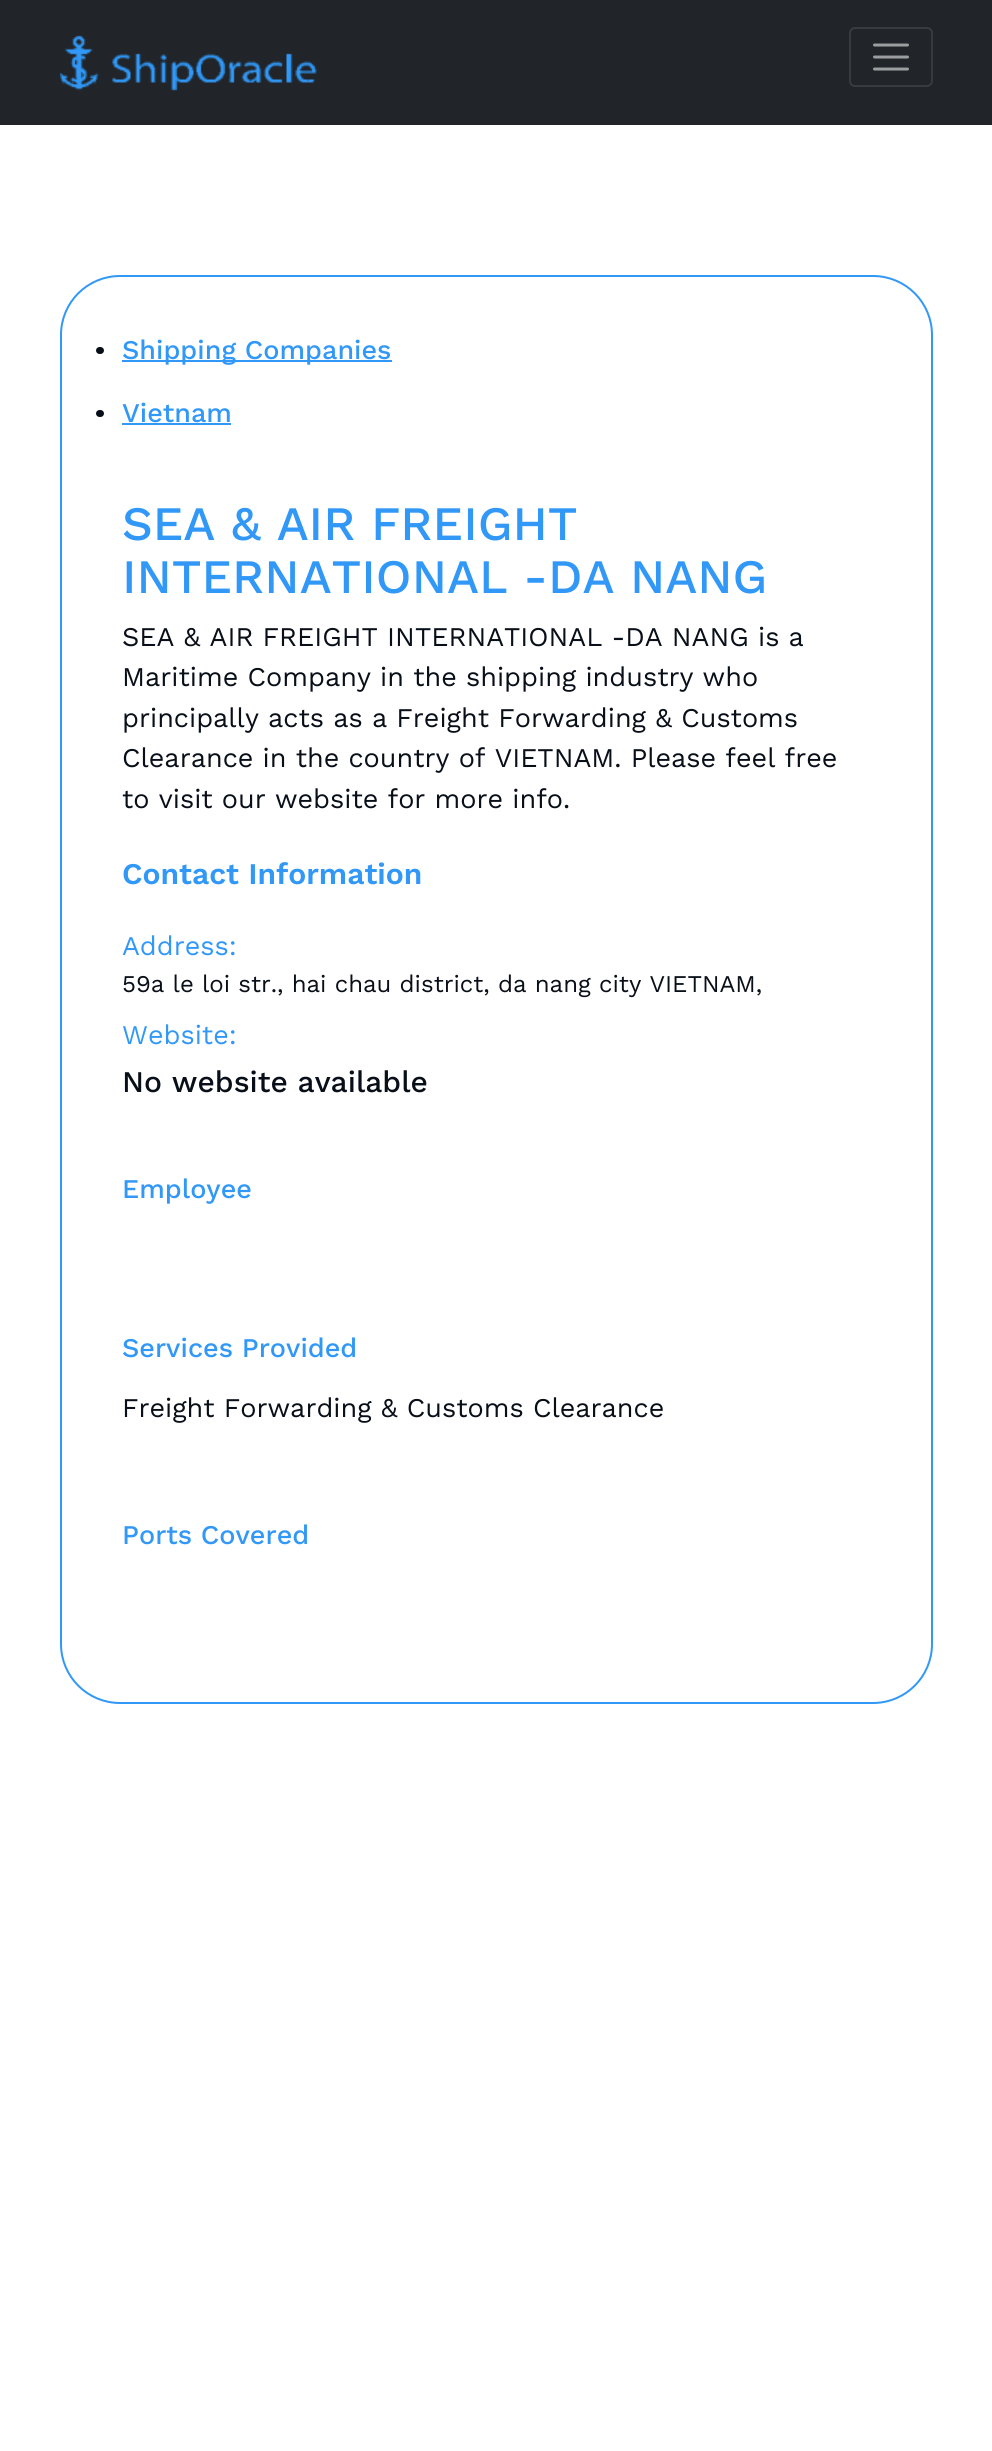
#include <cairo/cairo.h>
#include <math.h>
#include <stddef.h>


static void rounded_rect(cairo_t *cr, double x, double y, double w, double h, double r) {
  cairo_new_sub_path(cr);
  cairo_arc(cr, x + w - r, y + h - r, r, 0, M_PI / 2);
  cairo_arc(cr, x + r, y + h - r, r, M_PI / 2, M_PI);
  cairo_arc(cr, x + r, y + r, r, M_PI, 1.5 * M_PI);
  cairo_arc(cr, x + w - r, y + r, r, 1.5 * M_PI, 2 * M_PI);
  cairo_close_path(cr);
}

static void draw_image(cairo_t *cr, const char *path, double x, double y, double w, double h) {
  cairo_surface_t *image = cairo_image_surface_create_from_png(path);
  cairo_save(cr);
  cairo_set_source_surface(cr, image, x, y);
  cairo_rectangle(cr, x, y, w, h);
  cairo_fill(cr);
  cairo_restore(cr);
  cairo_surface_destroy(image);
}

static void draw(cairo_t *cr) {
  cairo_set_source_rgb(cr, 1, 1, 1);
  cairo_paint(cr);
  cairo_set_source_rgb(cr, 33 / 255.0, 37 / 255.0, 41 / 255.0);
  cairo_rectangle(cr, 0, 0, 992, 125);
  cairo_fill(cr);
  draw_image(cr, "images/1.png", 60, 35, 257, 56);
  rounded_rect(cr, 850, 28, 82, 58, 5);
  cairo_set_source_rgb(cr, 55 / 255.0, 59 / 255.0, 62 / 255.0);
  cairo_stroke(cr);
  cairo_new_path(cr);
  cairo_move_to(cr, 874.5, 45);
  cairo_line_to(cr, 907.5, 45);
  cairo_move_to(cr, 874.5, 57);
  cairo_line_to(cr, 907.5, 57);
  cairo_move_to(cr, 874.5, 69);
  cairo_line_to(cr, 907.5, 69);
  cairo_set_source_rgb(cr, 155 / 255.0, 157 / 255.0, 159 / 255.0);
  cairo_set_line_width(cr, 3);
  cairo_set_line_cap(cr, CAIRO_LINE_CAP_ROUND);
  cairo_stroke(cr);
  rounded_rect(cr, 61, 276, 871, 1427, 59);
  cairo_set_source_rgb(cr, 49 / 255.0, 152 / 255.0, 247 / 255.0);
  cairo_set_line_width(cr, 2);
  cairo_set_line_cap(cr, CAIRO_LINE_CAP_BUTT);
  cairo_stroke(cr);
  cairo_set_source_rgb(cr, 9 / 255.0, 15 / 255.0, 25 / 255.0);
  rounded_rect(cr, 96, 347, 8, 7, 3.5);
  cairo_fill(cr);
  cairo_set_source_rgb(cr, 49 / 255.0, 152 / 255.0, 247 / 255.0);
  cairo_rectangle(cr, 122, 360, 270, 2);
  cairo_fill(cr);
  cairo_set_source_rgb(cr, 9 / 255.0, 15 / 255.0, 25 / 255.0);
  rounded_rect(cr, 96, 410, 8, 7, 3.5);
  cairo_fill(cr);
  cairo_set_source_rgb(cr, 49 / 255.0, 152 / 255.0, 247 / 255.0);
  cairo_rectangle(cr, 122, 423, 109, 2);
  cairo_fill(cr);
  cairo_select_font_face(cr, "Work Sans Medium", CAIRO_FONT_SLANT_NORMAL, CAIRO_FONT_WEIGHT_NORMAL);
  cairo_set_font_size(cr, 27);
  cairo_move_to(cr, 122, 359);
  cairo_show_text(cr, "Shipping Companies");
  cairo_move_to(cr, 122, 422);
  cairo_show_text(cr, "Vietnam");
  cairo_set_font_size(cr, 48);
  cairo_move_to(cr, 122, 540);
  cairo_show_text(cr, "SEA & AIR FREIGHT");
  cairo_move_to(cr, 122, 593);
  cairo_show_text(cr, "INTERNATIONAL -DA NANG");
  cairo_select_font_face(cr, "Work Sans", CAIRO_FONT_SLANT_NORMAL, CAIRO_FONT_WEIGHT_NORMAL);
  cairo_set_font_size(cr, 27);
  cairo_set_source_rgb(cr, 9 / 255.0, 15 / 255.0, 25 / 255.0);
  cairo_move_to(cr, 122, 646);
  cairo_show_text(cr, "SEA & AIR FREIGHT INTERNATIONAL -DA NANG is a");
  cairo_move_to(cr, 122, 686);
  cairo_show_text(cr, "Maritime Company in the shipping industry who");
  cairo_move_to(cr, 122, 727);
  cairo_show_text(cr, "principally acts as a Freight Forwarding & Customs");
  cairo_move_to(cr, 122, 767);
  cairo_show_text(cr, "Clearance in the country of VIETNAM. Please feel free");
  cairo_move_to(cr, 122, 808);
  cairo_show_text(cr, "to visit our website for more info.");
  cairo_select_font_face(cr, "Work Sans SemiBold", CAIRO_FONT_SLANT_NORMAL, CAIRO_FONT_WEIGHT_NORMAL);
  cairo_set_font_size(cr, 30);
  cairo_set_source_rgb(cr, 49 / 255.0, 152 / 255.0, 247 / 255.0);
  cairo_move_to(cr, 122, 884);
  cairo_show_text(cr, "Contact Information");
  cairo_select_font_face(cr, "Work Sans", CAIRO_FONT_SLANT_NORMAL, CAIRO_FONT_WEIGHT_NORMAL);
  cairo_set_font_size(cr, 27);
  cairo_move_to(cr, 122, 955);
  cairo_show_text(cr, "Address:");
  cairo_set_font_size(cr, 24);
  cairo_set_source_rgb(cr, 9 / 255.0, 15 / 255.0, 25 / 255.0);
  cairo_move_to(cr, 122, 992);
  cairo_show_text(cr, "59a le loi str., hai chau district, da nang city VIETNAM,");
  cairo_set_font_size(cr, 27);
  cairo_set_source_rgb(cr, 49 / 255.0, 152 / 255.0, 247 / 255.0);
  cairo_move_to(cr, 122, 1044);
  cairo_show_text(cr, "Website:");
  cairo_select_font_face(cr, "Work Sans Medium", CAIRO_FONT_SLANT_NORMAL, CAIRO_FONT_WEIGHT_NORMAL);
  cairo_set_font_size(cr, 30);
  cairo_set_source_rgb(cr, 9 / 255.0, 15 / 255.0, 25 / 255.0);
  cairo_move_to(cr, 122, 1092);
  cairo_show_text(cr, "No website available");
  cairo_set_font_size(cr, 27);
  cairo_set_source_rgb(cr, 49 / 255.0, 152 / 255.0, 247 / 255.0);
  cairo_move_to(cr, 122, 1198);
  cairo_show_text(cr, "Employee");
  cairo_move_to(cr, 122, 1357);
  cairo_show_text(cr, "Services Provided");
  cairo_select_font_face(cr, "Work Sans", CAIRO_FONT_SLANT_NORMAL, CAIRO_FONT_WEIGHT_NORMAL);
  cairo_set_source_rgb(cr, 9 / 255.0, 15 / 255.0, 25 / 255.0);
  cairo_move_to(cr, 122, 1417);
  cairo_show_text(cr, "Freight Forwarding & Customs Clearance");
  cairo_select_font_face(cr, "Work Sans Medium", CAIRO_FONT_SLANT_NORMAL, CAIRO_FONT_WEIGHT_NORMAL);
  cairo_set_source_rgb(cr, 49 / 255.0, 152 / 255.0, 247 / 255.0);
  cairo_move_to(cr, 122, 1544);
  cairo_show_text(cr, "Ports Covered");
}

int main(void) {
  cairo_surface_t *surface = cairo_image_surface_create(CAIRO_FORMAT_RGB24, 992, 2451);
  cairo_t *cr = cairo_create(surface);
  cairo_font_options_t *options = cairo_font_options_create();
  cairo_font_options_set_hint_metrics(options, CAIRO_HINT_METRICS_OFF);
  cairo_font_options_set_hint_style(options, CAIRO_HINT_STYLE_NONE);
  cairo_set_font_options(cr, options);
  cairo_set_miter_limit(cr, 4);
  draw(cr);
  cairo_surface_write_to_png(surface, "out.png");
  cairo_font_options_destroy(options);
  cairo_destroy(cr);
  cairo_surface_destroy(surface);
  return 0;
}
